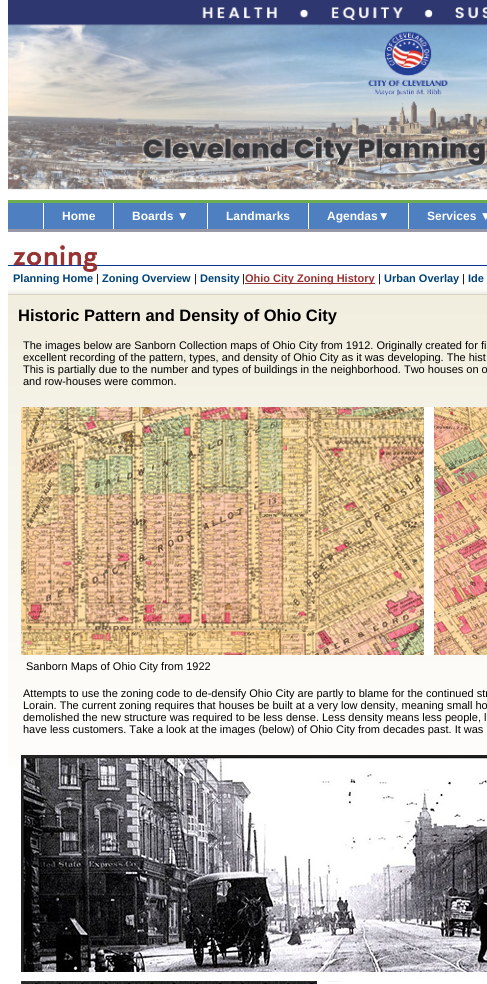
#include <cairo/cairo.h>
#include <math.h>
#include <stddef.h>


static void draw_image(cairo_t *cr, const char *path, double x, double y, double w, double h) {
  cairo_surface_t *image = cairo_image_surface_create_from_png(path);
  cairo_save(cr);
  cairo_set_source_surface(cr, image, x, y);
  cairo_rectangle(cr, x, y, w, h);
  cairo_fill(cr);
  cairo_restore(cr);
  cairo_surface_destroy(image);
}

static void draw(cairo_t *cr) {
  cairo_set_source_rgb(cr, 1, 1, 1);
  cairo_paint(cr);
  draw_image(cr, "images/1.png", 8, 0, 479, 190);
  cairo_set_source_rgb(cr, 108 / 255.0, 173 / 255.0, 79 / 255.0);
  cairo_rectangle(cr, 8, 200, 479, 3);
  cairo_fill(cr);
  cairo_set_source_rgb(cr, 78 / 255.0, 127 / 255.0, 193 / 255.0);
  cairo_rectangle(cr, 8, 203, 479, 26);
  cairo_fill(cr);
  cairo_set_source_rgb(cr, 1, 1, 1);
  cairo_rectangle(cr, 43, 203, 1, 26);
  cairo_fill(cr);
  cairo_rectangle(cr, 113, 203, 1, 26);
  cairo_fill(cr);
  cairo_rectangle(cr, 207, 203, 1, 26);
  cairo_fill(cr);
  cairo_rectangle(cr, 308, 203, 1, 26);
  cairo_fill(cr);
  cairo_rectangle(cr, 408, 203, 1, 26);
  cairo_fill(cr);
  cairo_set_source_rgb(cr, 151 / 255.0, 151 / 255.0, 166 / 255.0);
  cairo_rectangle(cr, 8, 229, 479, 3);
  cairo_fill(cr);
  draw_image(cr, "images/2.png", 8, 240, 479, 32);
  cairo_set_source_rgb(cr, 153 / 255.0, 51 / 255.0, 51 / 255.0);
  cairo_rectangle(cr, 245, 283, 130, 1);
  cairo_fill(cr);
  draw_image(cr, "images/3.png", 8, 287, 479, 481);
  draw_image(cr, "images/4.png", 21, 407, 466, 248);
  draw_image(cr, "images/5.png", 21, 755, 466, 229);
  cairo_select_font_face(cr, "Liberation Sans", CAIRO_FONT_SLANT_NORMAL, CAIRO_FONT_WEIGHT_BOLD);
  cairo_set_font_size(cr, 12);
  cairo_set_source_rgb(cr, 1, 1, 1);
  cairo_move_to(cr, 62, 220);
  cairo_show_text(cr, "Home");
  cairo_move_to(cr, 132, 220);
  cairo_show_text(cr, "Boards ▼");
  cairo_move_to(cr, 226, 220);
  cairo_show_text(cr, "Landmarks");
  cairo_move_to(cr, 327, 220);
  cairo_show_text(cr, "Agendas▼");
  cairo_move_to(cr, 427, 220);
  cairo_show_text(cr, "Services ▼");
  cairo_set_font_size(cr, 11);
  cairo_set_source_rgb(cr, 0, 66 / 255.0, 118 / 255.0);
  cairo_move_to(cr, 13, 282);
  cairo_show_text(cr, "Planning Home");
  cairo_select_font_face(cr, "Liberation Sans", CAIRO_FONT_SLANT_NORMAL, CAIRO_FONT_WEIGHT_NORMAL);
  cairo_set_source_rgb(cr, 0, 0, 0);
  cairo_move_to(cr, 96, 282);
  cairo_show_text(cr, "|");
  cairo_select_font_face(cr, "Liberation Sans", CAIRO_FONT_SLANT_NORMAL, CAIRO_FONT_WEIGHT_BOLD);
  cairo_set_source_rgb(cr, 0, 66 / 255.0, 118 / 255.0);
  cairo_move_to(cr, 102, 282);
  cairo_show_text(cr, "Zoning Overview");
  cairo_select_font_face(cr, "Liberation Sans", CAIRO_FONT_SLANT_NORMAL, CAIRO_FONT_WEIGHT_NORMAL);
  cairo_set_source_rgb(cr, 0, 0, 0);
  cairo_move_to(cr, 194, 282);
  cairo_show_text(cr, "|");
  cairo_select_font_face(cr, "Liberation Sans", CAIRO_FONT_SLANT_NORMAL, CAIRO_FONT_WEIGHT_BOLD);
  cairo_set_source_rgb(cr, 0, 66 / 255.0, 118 / 255.0);
  cairo_move_to(cr, 200, 282);
  cairo_show_text(cr, "Density");
  cairo_select_font_face(cr, "Liberation Sans", CAIRO_FONT_SLANT_NORMAL, CAIRO_FONT_WEIGHT_NORMAL);
  cairo_set_source_rgb(cr, 0, 0, 0);
  cairo_move_to(cr, 242, 282);
  cairo_show_text(cr, "|");
  cairo_select_font_face(cr, "Liberation Sans", CAIRO_FONT_SLANT_NORMAL, CAIRO_FONT_WEIGHT_BOLD);
  cairo_set_source_rgb(cr, 153 / 255.0, 51 / 255.0, 51 / 255.0);
  cairo_move_to(cr, 245, 282);
  cairo_show_text(cr, "Ohio City Zoning History");
  cairo_select_font_face(cr, "Liberation Sans", CAIRO_FONT_SLANT_NORMAL, CAIRO_FONT_WEIGHT_NORMAL);
  cairo_set_source_rgb(cr, 0, 0, 0);
  cairo_move_to(cr, 378, 282);
  cairo_show_text(cr, "|");
  cairo_select_font_face(cr, "Liberation Sans", CAIRO_FONT_SLANT_NORMAL, CAIRO_FONT_WEIGHT_BOLD);
  cairo_set_source_rgb(cr, 0, 66 / 255.0, 118 / 255.0);
  cairo_move_to(cr, 384, 282);
  cairo_show_text(cr, "Urban Overlay");
  cairo_select_font_face(cr, "Liberation Sans", CAIRO_FONT_SLANT_NORMAL, CAIRO_FONT_WEIGHT_NORMAL);
  cairo_set_source_rgb(cr, 0, 0, 0);
  cairo_move_to(cr, 462, 282);
  cairo_show_text(cr, "|");
  cairo_select_font_face(cr, "Liberation Sans", CAIRO_FONT_SLANT_NORMAL, CAIRO_FONT_WEIGHT_BOLD);
  cairo_set_source_rgb(cr, 0, 66 / 255.0, 118 / 255.0);
  cairo_move_to(cr, 468, 282);
  cairo_show_text(cr, "Ide");
  cairo_set_font_size(cr, 16.5);
  cairo_set_source_rgb(cr, 0, 0, 0);
  cairo_move_to(cr, 18, 321);
  cairo_show_text(cr, "Historic Pattern and Density of Ohio City");
  cairo_select_font_face(cr, "Liberation Sans", CAIRO_FONT_SLANT_NORMAL, CAIRO_FONT_WEIGHT_NORMAL);
  cairo_set_font_size(cr, 11);
  cairo_move_to(cr, 23, 349);
  cairo_show_text(cr, "The images below are Sanborn Collection maps of Ohio City from 1912. Originally created for fi");
  cairo_move_to(cr, 23, 361);
  cairo_show_text(cr, "excellent recording of the pattern, types, and density of Ohio City as it was developing. The hist");
  cairo_move_to(cr, 23, 373);
  cairo_show_text(cr, "This is partially due to the number and types of buildings in the neighborhood. Two houses on o");
  cairo_move_to(cr, 23, 385);
  cairo_show_text(cr, "and row-houses were common.");
  cairo_move_to(cr, 26, 670);
  cairo_show_text(cr, "Sanborn Maps of Ohio City from 1922");
  cairo_move_to(cr, 23, 697);
  cairo_show_text(cr, "Attempts to use the zoning code to de-densify Ohio City are partly to blame for the continued str");
  cairo_move_to(cr, 23, 709);
  cairo_show_text(cr, "Lorain. The current zoning requires that houses be built at a very low density, meaning small ho");
  cairo_move_to(cr, 23, 721);
  cairo_show_text(cr, "demolished the new structure was required to be less dense. Less density means less people, l");
  cairo_move_to(cr, 23, 733);
  cairo_show_text(cr, "have less customers. Take a look at the images (below) of Ohio City from decades past. It was");
}

int main(void) {
  cairo_surface_t *surface = cairo_image_surface_create(CAIRO_FORMAT_RGB24, 487, 984);
  cairo_t *cr = cairo_create(surface);
  cairo_font_options_t *options = cairo_font_options_create();
  cairo_font_options_set_hint_metrics(options, CAIRO_HINT_METRICS_OFF);
  cairo_font_options_set_hint_style(options, CAIRO_HINT_STYLE_NONE);
  cairo_set_font_options(cr, options);
  cairo_set_miter_limit(cr, 4);
  draw(cr);
  cairo_surface_write_to_png(surface, "out.png");
  cairo_font_options_destroy(options);
  cairo_destroy(cr);
  cairo_surface_destroy(surface);
  return 0;
}
